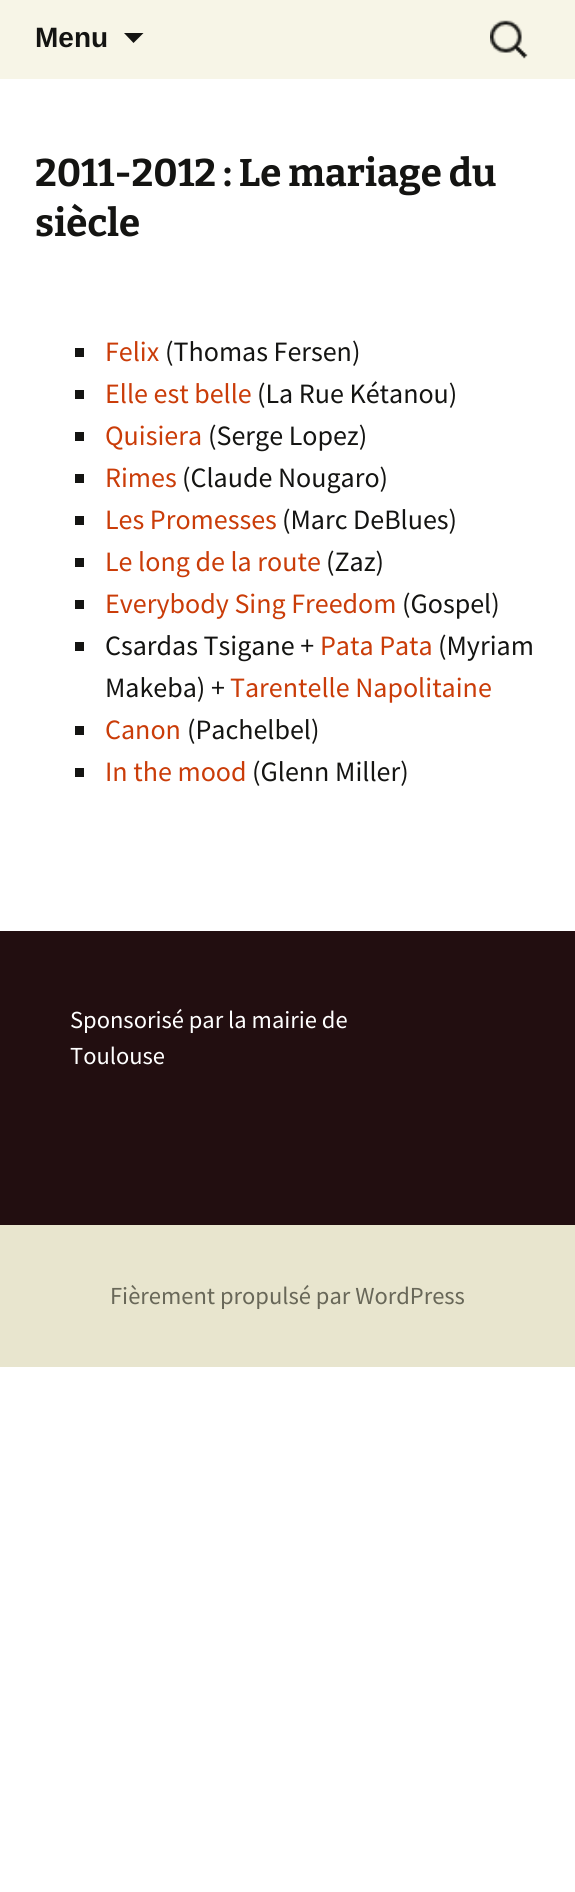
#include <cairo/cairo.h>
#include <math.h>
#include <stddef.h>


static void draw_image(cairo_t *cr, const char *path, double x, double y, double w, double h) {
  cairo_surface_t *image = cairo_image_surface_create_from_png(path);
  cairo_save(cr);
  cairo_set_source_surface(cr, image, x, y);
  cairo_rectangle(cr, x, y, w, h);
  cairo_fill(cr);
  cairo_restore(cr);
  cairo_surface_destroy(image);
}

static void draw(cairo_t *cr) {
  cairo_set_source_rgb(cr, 1, 1, 1);
  cairo_paint(cr);
  cairo_set_source_rgb(cr, 247 / 255.0, 245 / 255.0, 231 / 255.0);
  cairo_rectangle(cr, 0, 0, 575, 79);
  cairo_fill(cr);
  cairo_set_source_rgb(cr, 20 / 255.0, 20 / 255.0, 18 / 255.0);
  cairo_new_path(cr);
  cairo_move_to(cr, 124, 33);
  cairo_line_to(cr, 133.5, 43);
  cairo_line_to(cr, 143.5, 33);
  cairo_close_path(cr);
  cairo_fill(cr);
  draw_image(cr, "images/1.png", 490, 20, 38, 39);
  cairo_rectangle(cr, 75, 348, 9, 9);
  cairo_fill(cr);
  cairo_rectangle(cr, 75, 390, 9, 9);
  cairo_fill(cr);
  cairo_rectangle(cr, 75, 432, 9, 9);
  cairo_fill(cr);
  cairo_rectangle(cr, 75, 474, 9, 9);
  cairo_fill(cr);
  cairo_rectangle(cr, 75, 516, 9, 9);
  cairo_fill(cr);
  cairo_rectangle(cr, 75, 558, 9, 9);
  cairo_fill(cr);
  cairo_rectangle(cr, 75, 600, 9, 9);
  cairo_fill(cr);
  cairo_rectangle(cr, 75, 642, 9, 9);
  cairo_fill(cr);
  cairo_rectangle(cr, 75, 726, 9, 9);
  cairo_fill(cr);
  cairo_rectangle(cr, 75, 768, 9, 9);
  cairo_fill(cr);
  cairo_set_source_rgb(cr, 232 / 255.0, 229 / 255.0, 206 / 255.0);
  cairo_rectangle(cr, 0, 1225, 575, 142);
  cairo_fill(cr);
  cairo_set_source_rgb(cr, 34 / 255.0, 14 / 255.0, 16 / 255.0);
  cairo_rectangle(cr, 0, 931, 575, 294);
  cairo_fill(cr);
  cairo_select_font_face(cr, "Liberation Sans", CAIRO_FONT_SLANT_NORMAL, CAIRO_FONT_WEIGHT_BOLD);
  cairo_set_font_size(cr, 28);
  cairo_set_source_rgb(cr, 20 / 255.0, 20 / 255.0, 18 / 255.0);
  cairo_move_to(cr, 35, 47);
  cairo_show_text(cr, "Menu");
  cairo_select_font_face(cr, "Bitter Thin", CAIRO_FONT_SLANT_NORMAL, CAIRO_FONT_WEIGHT_NORMAL);
  cairo_set_font_size(cr, 38.5);
  cairo_move_to(cr, 35, 186);
  cairo_show_text(cr, "2011-2012 : Le mariage du");
  cairo_move_to(cr, 35, 236);
  cairo_show_text(cr, "siècle");
  cairo_select_font_face(cr, "Source Sans Pro", CAIRO_FONT_SLANT_NORMAL, CAIRO_FONT_WEIGHT_NORMAL);
  cairo_set_font_size(cr, 28);
  cairo_set_source_rgb(cr, 202 / 255.0, 60 / 255.0, 8 / 255.0);
  cairo_move_to(cr, 105, 361);
  cairo_show_text(cr, "Felix");
  cairo_set_source_rgb(cr, 20 / 255.0, 20 / 255.0, 18 / 255.0);
  cairo_move_to(cr, 165, 361);
  cairo_show_text(cr, "(Thomas Fersen)");
  cairo_set_source_rgb(cr, 202 / 255.0, 60 / 255.0, 8 / 255.0);
  cairo_move_to(cr, 105, 403);
  cairo_show_text(cr, "Elle est belle");
  cairo_set_source_rgb(cr, 20 / 255.0, 20 / 255.0, 18 / 255.0);
  cairo_move_to(cr, 257, 403);
  cairo_show_text(cr, "(La Rue Kétanou)");
  cairo_set_source_rgb(cr, 202 / 255.0, 60 / 255.0, 8 / 255.0);
  cairo_move_to(cr, 105, 445);
  cairo_show_text(cr, "Quisiera");
  cairo_set_source_rgb(cr, 20 / 255.0, 20 / 255.0, 18 / 255.0);
  cairo_move_to(cr, 208, 445);
  cairo_show_text(cr, "(Serge Lopez)");
  cairo_set_source_rgb(cr, 202 / 255.0, 60 / 255.0, 8 / 255.0);
  cairo_move_to(cr, 105, 487);
  cairo_show_text(cr, "Rimes");
  cairo_set_source_rgb(cr, 20 / 255.0, 20 / 255.0, 18 / 255.0);
  cairo_move_to(cr, 182, 487);
  cairo_show_text(cr, "(Claude Nougaro)");
  cairo_set_source_rgb(cr, 202 / 255.0, 60 / 255.0, 8 / 255.0);
  cairo_move_to(cr, 105, 529);
  cairo_show_text(cr, "Les Promesses");
  cairo_set_source_rgb(cr, 20 / 255.0, 20 / 255.0, 18 / 255.0);
  cairo_move_to(cr, 282, 529);
  cairo_show_text(cr, "(Marc DeBlues)");
  cairo_set_source_rgb(cr, 202 / 255.0, 60 / 255.0, 8 / 255.0);
  cairo_move_to(cr, 105, 571);
  cairo_show_text(cr, "Le long de la route");
  cairo_set_source_rgb(cr, 20 / 255.0, 20 / 255.0, 18 / 255.0);
  cairo_move_to(cr, 326, 571);
  cairo_show_text(cr, "(Zaz)");
  cairo_set_source_rgb(cr, 202 / 255.0, 60 / 255.0, 8 / 255.0);
  cairo_move_to(cr, 105, 613);
  cairo_show_text(cr, "Everybody Sing Freedom");
  cairo_set_source_rgb(cr, 20 / 255.0, 20 / 255.0, 18 / 255.0);
  cairo_move_to(cr, 402, 613);
  cairo_show_text(cr, "(Gospel)");
  cairo_move_to(cr, 105, 655);
  cairo_show_text(cr, "Csardas Tsigane +");
  cairo_set_source_rgb(cr, 202 / 255.0, 60 / 255.0, 8 / 255.0);
  cairo_move_to(cr, 320, 655);
  cairo_show_text(cr, "Pata Pata");
  cairo_set_source_rgb(cr, 20 / 255.0, 20 / 255.0, 18 / 255.0);
  cairo_move_to(cr, 438, 655);
  cairo_show_text(cr, "(Myriam");
  cairo_move_to(cr, 105, 697);
  cairo_show_text(cr, "Makeba) +");
  cairo_set_source_rgb(cr, 202 / 255.0, 60 / 255.0, 8 / 255.0);
  cairo_move_to(cr, 230, 697);
  cairo_show_text(cr, "Tarentelle Napolitaine");
  cairo_move_to(cr, 105, 739);
  cairo_show_text(cr, "Canon");
  cairo_set_source_rgb(cr, 20 / 255.0, 20 / 255.0, 18 / 255.0);
  cairo_move_to(cr, 187, 739);
  cairo_show_text(cr, "(Pachelbel)");
  cairo_set_source_rgb(cr, 202 / 255.0, 60 / 255.0, 8 / 255.0);
  cairo_move_to(cr, 105, 781);
  cairo_show_text(cr, "In the mood");
  cairo_set_source_rgb(cr, 20 / 255.0, 20 / 255.0, 18 / 255.0);
  cairo_move_to(cr, 252, 781);
  cairo_show_text(cr, "(Glenn Miller)");
  cairo_set_font_size(cr, 24.5);
  cairo_set_source_rgb(cr, 1, 1, 1);
  cairo_move_to(cr, 70, 1028);
  cairo_show_text(cr, "Sponsorisé par la mairie de");
  cairo_move_to(cr, 70, 1064);
  cairo_show_text(cr, "Toulouse");
  cairo_set_source_rgb(cr, 104 / 255.0, 103 / 255.0, 88 / 255.0);
  cairo_move_to(cr, 110, 1304);
  cairo_show_text(cr, "Fièrement propulsé par WordPress");
}

int main(void) {
  cairo_surface_t *surface = cairo_image_surface_create(CAIRO_FORMAT_RGB24, 575, 1892);
  cairo_t *cr = cairo_create(surface);
  cairo_font_options_t *options = cairo_font_options_create();
  cairo_font_options_set_hint_metrics(options, CAIRO_HINT_METRICS_OFF);
  cairo_font_options_set_hint_style(options, CAIRO_HINT_STYLE_NONE);
  cairo_set_font_options(cr, options);
  cairo_set_miter_limit(cr, 4);
  draw(cr);
  cairo_surface_write_to_png(surface, "out.png");
  cairo_font_options_destroy(options);
  cairo_destroy(cr);
  cairo_surface_destroy(surface);
  return 0;
}
